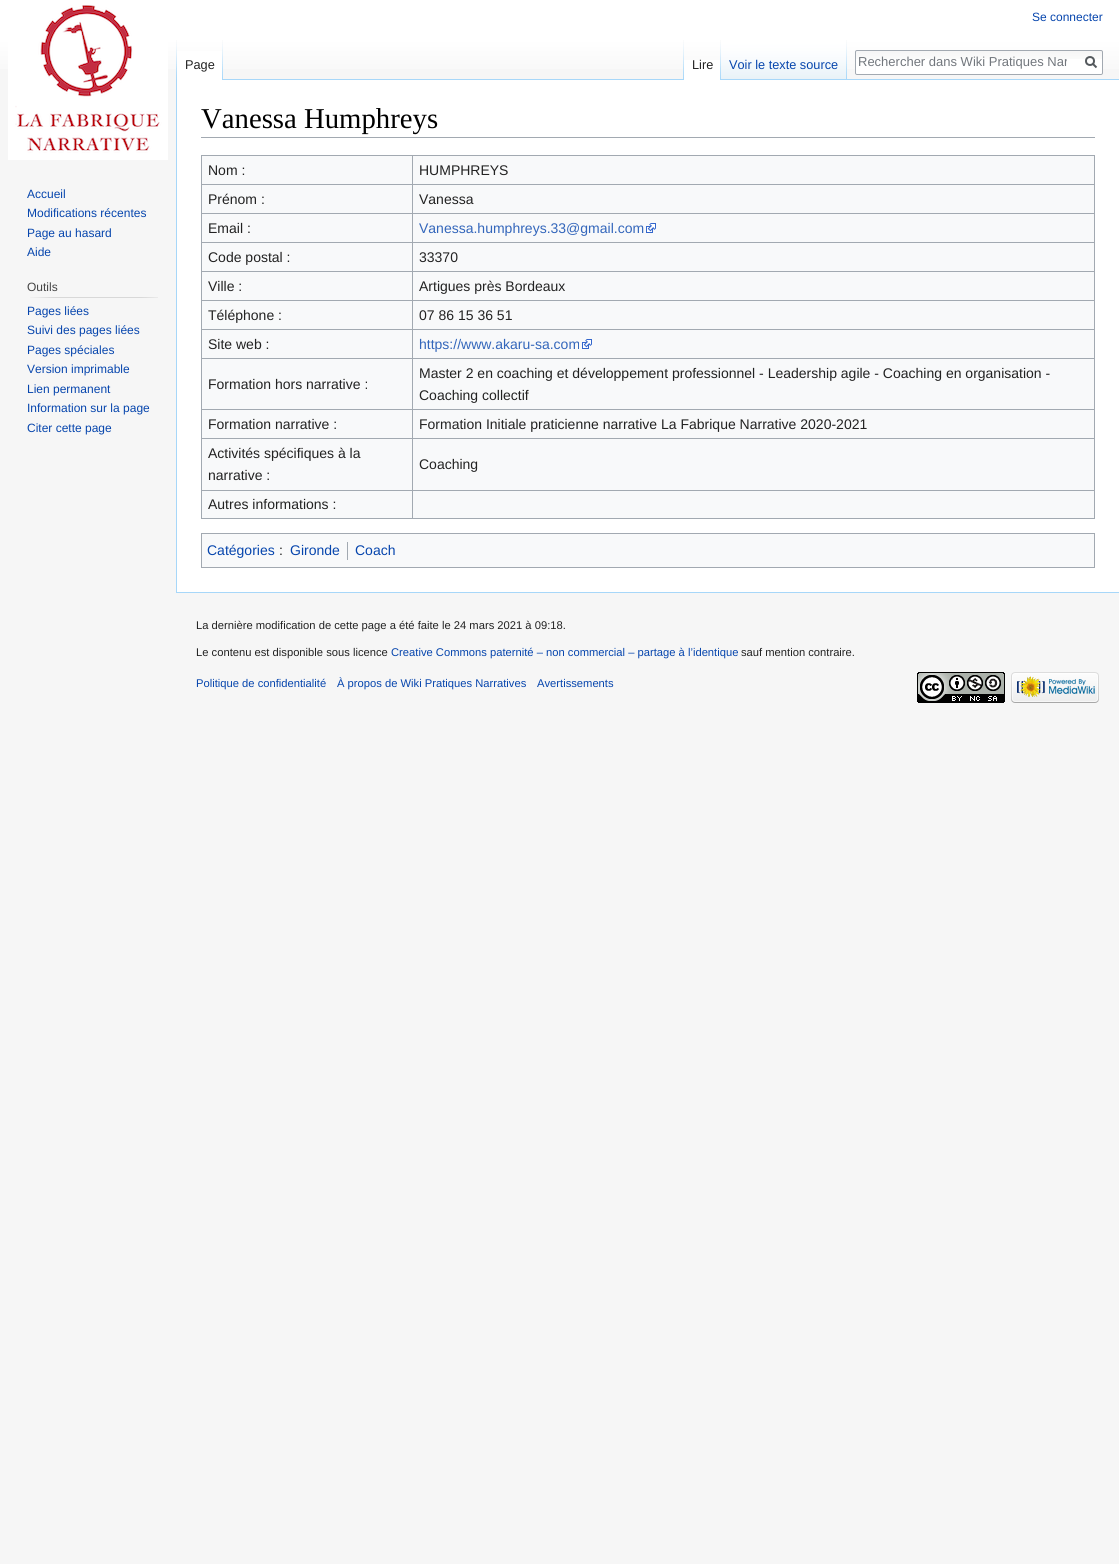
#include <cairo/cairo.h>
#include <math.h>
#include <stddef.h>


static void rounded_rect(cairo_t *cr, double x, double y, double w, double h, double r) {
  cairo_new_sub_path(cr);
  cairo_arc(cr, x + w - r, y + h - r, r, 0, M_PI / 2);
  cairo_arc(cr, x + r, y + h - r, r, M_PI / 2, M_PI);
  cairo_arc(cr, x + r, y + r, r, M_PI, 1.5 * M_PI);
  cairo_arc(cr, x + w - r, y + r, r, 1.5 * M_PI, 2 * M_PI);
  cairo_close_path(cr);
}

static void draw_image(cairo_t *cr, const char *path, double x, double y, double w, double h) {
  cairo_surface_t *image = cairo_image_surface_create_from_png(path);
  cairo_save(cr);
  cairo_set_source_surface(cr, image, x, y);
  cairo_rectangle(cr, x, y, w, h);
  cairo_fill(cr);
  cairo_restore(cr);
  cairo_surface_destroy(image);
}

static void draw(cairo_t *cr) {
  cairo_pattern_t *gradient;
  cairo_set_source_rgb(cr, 246 / 255.0, 246 / 255.0, 246 / 255.0);
  cairo_paint(cr);
  gradient = cairo_pattern_create_linear(560, 0, 560, 80);
  cairo_pattern_add_color_stop_rgba(gradient, 0.5, 1, 1, 1, 1);
  cairo_pattern_add_color_stop_rgba(gradient, 1, 246 / 255.0, 246 / 255.0, 246 / 255.0, 1);
  cairo_set_source(cr, gradient);
  cairo_pattern_destroy(gradient);
  cairo_rectangle(cr, 0, 0, 1119, 69);
  cairo_fill(cr);
  draw_image(cr, "images/1.png", 176, 40, 1, 39);
  cairo_set_source_rgb(cr, 1, 1, 1);
  cairo_rectangle(cr, 177, 51, 45, 29);
  cairo_fill(cr);
  draw_image(cr, "images/2.png", 222, 40, 1, 40);
  draw_image(cr, "images/1.png", 683, 40, 1, 39);
  cairo_set_source_rgb(cr, 167 / 255.0, 215 / 255.0, 249 / 255.0);
  cairo_rectangle(cr, 223, 79, 896, 1);
  cairo_fill(cr);
  cairo_set_source_rgb(cr, 1, 1, 1);
  cairo_rectangle(cr, 684, 60, 36, 20);
  cairo_fill(cr);
  draw_image(cr, "images/2.png", 720, 40, 1, 40);
  draw_image(cr, "images/3.png", 721, 40, 125, 39);
  draw_image(cr, "images/1.png", 846, 40, 1, 39);
  rounded_rect(cr, 855, 50, 248, 25, 2);
  cairo_fill(cr);
  draw_image(cr, "images/4.png", 855, 51, 248, 8);
  rounded_rect(cr, 855.5, 50.5, 247, 24, 1.5);
  cairo_set_source_rgb(cr, 162 / 255.0, 169 / 255.0, 177 / 255.0);
  cairo_set_line_width(cr, 1);
  cairo_stroke(cr);
  cairo_new_path(cr);
  cairo_move_to(cr, 1096.5, 67.5);
  cairo_line_to(cr, 1092.5, 63.5);
  cairo_set_source_rgb(cr, 84 / 255.0, 89 / 255.0, 93 / 255.0);
  cairo_set_line_width(cr, 2);
  cairo_stroke(cr);
  cairo_arc(cr, 1090, 61, 4, 0, 2 * M_PI);
  cairo_stroke(cr);
  draw_image(cr, "images/5.png", 8, 5, 160, 155);
  draw_image(cr, "images/6.png", 30, 297, 128, 1);
  cairo_set_source_rgb(cr, 1, 1, 1);
  cairo_rectangle(cr, 177, 80, 942, 512);
  cairo_fill(cr);
  cairo_set_source_rgb(cr, 167 / 255.0, 215 / 255.0, 249 / 255.0);
  cairo_rectangle(cr, 176, 592, 943, 1);
  cairo_fill(cr);
  cairo_rectangle(cr, 176, 79, 1, 514);
  cairo_fill(cr);
  cairo_set_source_rgb(cr, 162 / 255.0, 169 / 255.0, 177 / 255.0);
  cairo_rectangle(cr, 201, 137, 894, 1);
  cairo_fill(cr);
  cairo_set_source_rgb(cr, 248 / 255.0, 249 / 255.0, 250 / 255.0);
  cairo_rectangle(cr, 202, 156, 892, 362);
  cairo_fill(cr);
  cairo_set_source_rgb(cr, 162 / 255.0, 169 / 255.0, 177 / 255.0);
  cairo_rectangle(cr, 201, 155, 894, 1);
  cairo_fill(cr);
  cairo_rectangle(cr, 1094, 155, 1, 364);
  cairo_fill(cr);
  cairo_rectangle(cr, 201, 518, 894, 1);
  cairo_fill(cr);
  cairo_rectangle(cr, 201, 155, 1, 364);
  cairo_fill(cr);
  cairo_rectangle(cr, 412, 184, 683, 1);
  cairo_fill(cr);
  cairo_rectangle(cr, 412, 213, 683, 1);
  cairo_fill(cr);
  cairo_rectangle(cr, 412, 242, 683, 1);
  cairo_fill(cr);
  cairo_rectangle(cr, 412, 271, 683, 1);
  cairo_fill(cr);
  cairo_rectangle(cr, 412, 300, 683, 1);
  cairo_fill(cr);
  cairo_rectangle(cr, 412, 329, 683, 1);
  cairo_fill(cr);
  cairo_rectangle(cr, 412, 358, 683, 1);
  cairo_fill(cr);
  cairo_rectangle(cr, 412, 409, 683, 1);
  cairo_fill(cr);
  cairo_rectangle(cr, 412, 438, 683, 1);
  cairo_fill(cr);
  cairo_rectangle(cr, 412, 490, 683, 1);
  cairo_fill(cr);
  cairo_rectangle(cr, 412, 490, 1, 29);
  cairo_fill(cr);
  cairo_rectangle(cr, 201, 490, 212, 1);
  cairo_fill(cr);
  cairo_rectangle(cr, 412, 438, 1, 53);
  cairo_fill(cr);
  cairo_rectangle(cr, 201, 438, 212, 1);
  cairo_fill(cr);
  cairo_rectangle(cr, 412, 409, 1, 30);
  cairo_fill(cr);
  cairo_rectangle(cr, 201, 409, 212, 1);
  cairo_fill(cr);
  cairo_rectangle(cr, 412, 358, 1, 52);
  cairo_fill(cr);
  cairo_rectangle(cr, 201, 358, 212, 1);
  cairo_fill(cr);
  cairo_rectangle(cr, 412, 329, 1, 30);
  cairo_fill(cr);
  cairo_rectangle(cr, 201, 329, 212, 1);
  cairo_fill(cr);
  cairo_rectangle(cr, 412, 300, 1, 30);
  cairo_fill(cr);
  cairo_rectangle(cr, 201, 300, 212, 1);
  cairo_fill(cr);
  cairo_rectangle(cr, 412, 271, 1, 30);
  cairo_fill(cr);
  cairo_rectangle(cr, 201, 271, 212, 1);
  cairo_fill(cr);
  cairo_rectangle(cr, 412, 242, 1, 30);
  cairo_fill(cr);
  cairo_rectangle(cr, 201, 242, 212, 1);
  cairo_fill(cr);
  cairo_rectangle(cr, 412, 213, 1, 30);
  cairo_fill(cr);
  cairo_rectangle(cr, 201, 213, 212, 1);
  cairo_fill(cr);
  cairo_rectangle(cr, 412, 184, 1, 30);
  cairo_fill(cr);
  cairo_rectangle(cr, 201, 184, 212, 1);
  cairo_fill(cr);
  cairo_rectangle(cr, 412, 155, 1, 30);
  cairo_fill(cr);
  draw_image(cr, "images/7.png", 646, 223, 10, 10);
  draw_image(cr, "images/7.png", 582, 339, 10, 10);
  cairo_set_source_rgb(cr, 248 / 255.0, 249 / 255.0, 250 / 255.0);
  cairo_rectangle(cr, 201.5, 533.5, 893, 34);
  cairo_fill_preserve(cr);
  cairo_set_source_rgb(cr, 162 / 255.0, 169 / 255.0, 177 / 255.0);
  cairo_set_line_width(cr, 1);
  cairo_stroke(cr);
  cairo_rectangle(cr, 347, 542, 1, 18);
  cairo_fill(cr);
  draw_image(cr, "images/8.png", 917, 672, 88, 31);
  draw_image(cr, "images/9.png", 1011, 672, 88, 31);
  cairo_select_font_face(cr, "Liberation Sans", CAIRO_FONT_SLANT_NORMAL, CAIRO_FONT_WEIGHT_NORMAL);
  cairo_set_font_size(cr, 12);
  cairo_set_source_rgb(cr, 6 / 255.0, 69 / 255.0, 173 / 255.0);
  cairo_move_to(cr, 1032, 21);
  cairo_show_text(cr, "Se connecter");
  cairo_set_font_size(cr, 12.75);
  cairo_set_source_rgb(cr, 34 / 255.0, 34 / 255.0, 34 / 255.0);
  cairo_move_to(cr, 185, 69);
  cairo_show_text(cr, "Page");
  cairo_move_to(cr, 692, 69);
  cairo_show_text(cr, "Lire");
  cairo_set_source_rgb(cr, 6 / 255.0, 69 / 255.0, 173 / 255.0);
  cairo_move_to(cr, 729, 69);
  cairo_show_text(cr, "Voir le texte source");
  cairo_save(cr);
  cairo_rectangle(cr, 858, 54, 209, 15);
  cairo_clip(cr);
  cairo_set_font_size(cr, 13);
  cairo_set_source_rgb(cr, 114 / 255.0, 119 / 255.0, 125 / 255.0);
  cairo_move_to(cr, 858, 66);
  cairo_show_text(cr, "Rechercher dans Wiki Pratiques Nar");
  cairo_restore(cr);
  cairo_set_font_size(cr, 12);
  cairo_move_to(cr, 27, 198);
  cairo_show_text(cr, "Accueil");
  cairo_move_to(cr, 27, 217);
  cairo_show_text(cr, "Modifications récentes");
  cairo_move_to(cr, 27, 237);
  cairo_show_text(cr, "Page au hasard");
  cairo_move_to(cr, 27, 256);
  cairo_show_text(cr, "Aide");
  cairo_set_source_rgb(cr, 68 / 255.0, 68 / 255.0, 68 / 255.0);
  cairo_move_to(cr, 27, 291);
  cairo_show_text(cr, "Outils");
  cairo_set_source_rgb(cr, 6 / 255.0, 69 / 255.0, 173 / 255.0);
  cairo_move_to(cr, 27, 315);
  cairo_show_text(cr, "Pages liées");
  cairo_move_to(cr, 27, 334);
  cairo_show_text(cr, "Suivi des pages liées");
  cairo_move_to(cr, 27, 354);
  cairo_show_text(cr, "Pages spéciales");
  cairo_move_to(cr, 27, 373);
  cairo_show_text(cr, "Version imprimable");
  cairo_move_to(cr, 27, 393);
  cairo_show_text(cr, "Lien permanent");
  cairo_move_to(cr, 27, 412);
  cairo_show_text(cr, "Information sur la page");
  cairo_move_to(cr, 27, 432);
  cairo_show_text(cr, "Citer cette page");
  cairo_select_font_face(cr, "Liberation Serif", CAIRO_FONT_SLANT_NORMAL, CAIRO_FONT_WEIGHT_NORMAL);
  cairo_set_font_size(cr, 28.75);
  cairo_set_source_rgb(cr, 0, 0, 0);
  cairo_move_to(cr, 201, 128);
  cairo_show_text(cr, "Vanessa Humphreys");
  cairo_select_font_face(cr, "Liberation Sans", CAIRO_FONT_SLANT_NORMAL, CAIRO_FONT_WEIGHT_NORMAL);
  cairo_set_font_size(cr, 14);
  cairo_set_source_rgb(cr, 34 / 255.0, 34 / 255.0, 34 / 255.0);
  cairo_move_to(cr, 208, 175);
  cairo_show_text(cr, "Nom :");
  cairo_move_to(cr, 419, 175);
  cairo_show_text(cr, "HUMPHREYS");
  cairo_move_to(cr, 208, 204);
  cairo_show_text(cr, "Prénom :");
  cairo_move_to(cr, 419, 204);
  cairo_show_text(cr, "Vanessa");
  cairo_move_to(cr, 208, 233);
  cairo_show_text(cr, "Email :");
  cairo_set_source_rgb(cr, 51 / 255.0, 102 / 255.0, 187 / 255.0);
  cairo_move_to(cr, 419, 233);
  cairo_show_text(cr, "Vanessa.humphreys.33@gmail.com");
  cairo_set_source_rgb(cr, 34 / 255.0, 34 / 255.0, 34 / 255.0);
  cairo_move_to(cr, 208, 262);
  cairo_show_text(cr, "Code postal :");
  cairo_move_to(cr, 419, 262);
  cairo_show_text(cr, "33370");
  cairo_move_to(cr, 208, 291);
  cairo_show_text(cr, "Ville :");
  cairo_move_to(cr, 419, 291);
  cairo_show_text(cr, "Artigues près Bordeaux");
  cairo_move_to(cr, 208, 320);
  cairo_show_text(cr, "Téléphone :");
  cairo_move_to(cr, 419, 320);
  cairo_show_text(cr, "07 86 15 36 51");
  cairo_move_to(cr, 208, 349);
  cairo_show_text(cr, "Site web :");
  cairo_set_source_rgb(cr, 51 / 255.0, 102 / 255.0, 187 / 255.0);
  cairo_move_to(cr, 419, 349);
  cairo_show_text(cr, "https://www.akaru-sa.com");
  cairo_set_source_rgb(cr, 34 / 255.0, 34 / 255.0, 34 / 255.0);
  cairo_move_to(cr, 208, 389);
  cairo_show_text(cr, "Formation hors narrative :");
  cairo_move_to(cr, 419, 378);
  cairo_show_text(cr, "Master 2 en coaching et développement professionnel - Leadership agile - Coaching en organisation -");
  cairo_move_to(cr, 419, 400);
  cairo_show_text(cr, "Coaching collectif");
  cairo_move_to(cr, 208, 429);
  cairo_show_text(cr, "Formation narrative :");
  cairo_move_to(cr, 419, 429);
  cairo_show_text(cr, "Formation Initiale praticienne narrative La Fabrique Narrative 2020-2021");
  cairo_move_to(cr, 208, 458);
  cairo_show_text(cr, "Activités spécifiques à la");
  cairo_move_to(cr, 208, 480);
  cairo_show_text(cr, "narrative :");
  cairo_move_to(cr, 419, 469);
  cairo_show_text(cr, "Coaching");
  cairo_move_to(cr, 208, 509);
  cairo_show_text(cr, "Autres informations :");
  cairo_set_source_rgb(cr, 6 / 255.0, 69 / 255.0, 173 / 255.0);
  cairo_move_to(cr, 207, 555);
  cairo_show_text(cr, "Catégories");
  cairo_set_source_rgb(cr, 34 / 255.0, 34 / 255.0, 34 / 255.0);
  cairo_move_to(cr, 279, 555);
  cairo_show_text(cr, ":");
  cairo_set_source_rgb(cr, 6 / 255.0, 69 / 255.0, 173 / 255.0);
  cairo_move_to(cr, 290, 555);
  cairo_show_text(cr, "Gironde");
  cairo_move_to(cr, 355, 555);
  cairo_show_text(cr, "Coach");
  cairo_set_font_size(cr, 11.2);
  cairo_set_source_rgb(cr, 34 / 255.0, 34 / 255.0, 34 / 255.0);
  cairo_move_to(cr, 196, 629);
  cairo_show_text(cr, "La dernière modification de cette page a été faite le 24 mars 2021 à 09:18.");
  cairo_move_to(cr, 196, 656);
  cairo_show_text(cr, "Le contenu est disponible sous licence");
  cairo_set_source_rgb(cr, 6 / 255.0, 69 / 255.0, 173 / 255.0);
  cairo_move_to(cr, 391, 656);
  cairo_show_text(cr, "Creative Commons paternité – non commercial – partage à l’identique");
  cairo_set_source_rgb(cr, 34 / 255.0, 34 / 255.0, 34 / 255.0);
  cairo_move_to(cr, 741, 656);
  cairo_show_text(cr, "sauf mention contraire.");
  cairo_set_source_rgb(cr, 6 / 255.0, 69 / 255.0, 173 / 255.0);
  cairo_move_to(cr, 196, 687);
  cairo_show_text(cr, "Politique de confidentialité");
  cairo_move_to(cr, 337, 687);
  cairo_show_text(cr, "À propos de Wiki Pratiques Narratives");
  cairo_move_to(cr, 537, 687);
  cairo_show_text(cr, "Avertissements");
}

int main(void) {
  cairo_surface_t *surface = cairo_image_surface_create(CAIRO_FORMAT_RGB24, 1119, 1564);
  cairo_t *cr = cairo_create(surface);
  cairo_font_options_t *options = cairo_font_options_create();
  cairo_font_options_set_hint_metrics(options, CAIRO_HINT_METRICS_OFF);
  cairo_font_options_set_hint_style(options, CAIRO_HINT_STYLE_NONE);
  cairo_set_font_options(cr, options);
  cairo_set_miter_limit(cr, 4);
  draw(cr);
  cairo_surface_write_to_png(surface, "out.png");
  cairo_font_options_destroy(options);
  cairo_destroy(cr);
  cairo_surface_destroy(surface);
  return 0;
}
